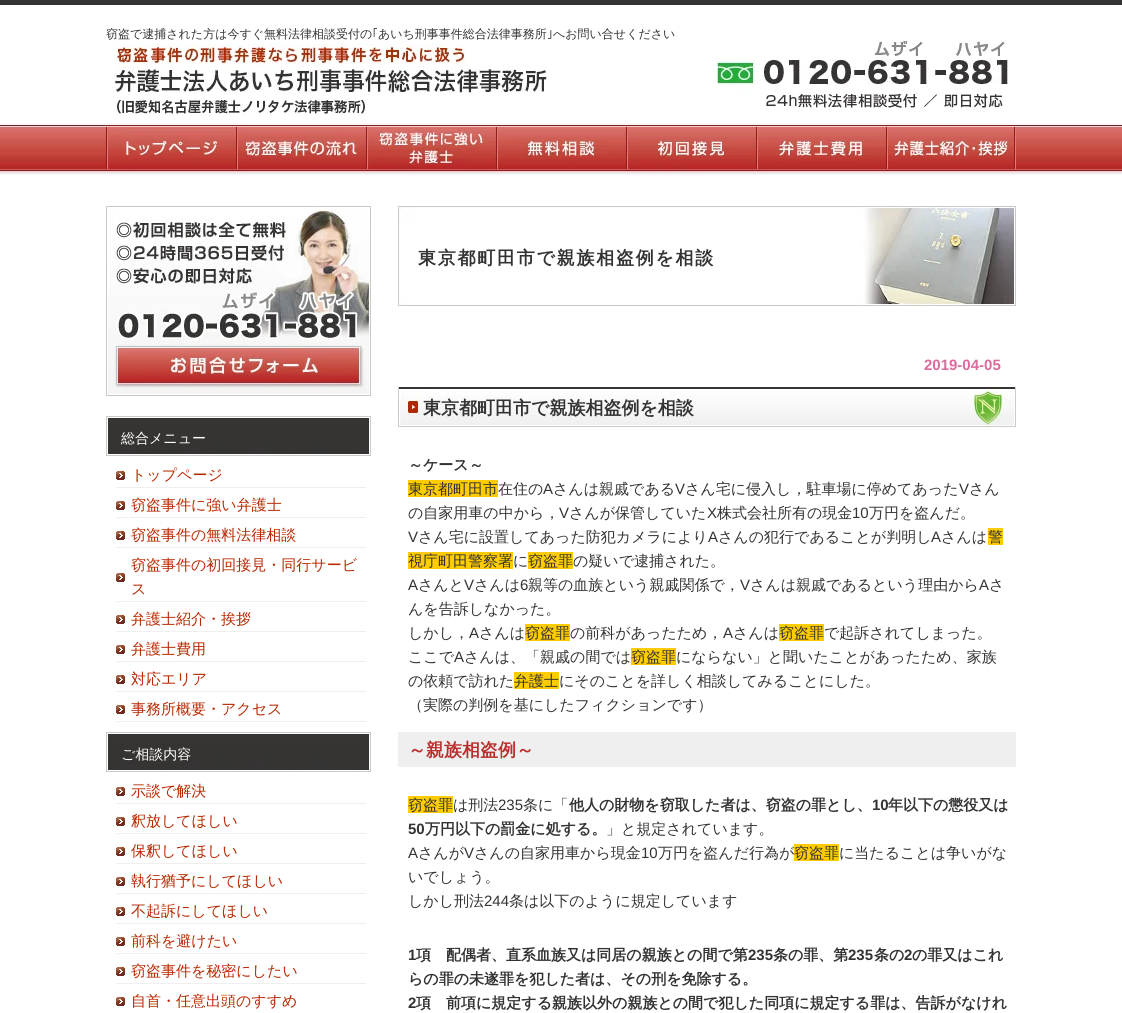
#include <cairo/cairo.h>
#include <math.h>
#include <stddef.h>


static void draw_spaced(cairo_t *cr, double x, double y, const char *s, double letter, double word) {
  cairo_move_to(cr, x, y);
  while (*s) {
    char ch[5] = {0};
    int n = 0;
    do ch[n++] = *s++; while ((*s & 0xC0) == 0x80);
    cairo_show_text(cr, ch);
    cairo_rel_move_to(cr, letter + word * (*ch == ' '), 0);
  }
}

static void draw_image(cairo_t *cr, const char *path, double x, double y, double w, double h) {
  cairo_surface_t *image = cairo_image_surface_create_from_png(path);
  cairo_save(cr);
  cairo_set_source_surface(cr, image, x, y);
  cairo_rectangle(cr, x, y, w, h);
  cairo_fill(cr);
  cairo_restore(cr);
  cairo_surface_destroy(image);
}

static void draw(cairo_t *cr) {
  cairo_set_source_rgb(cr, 1, 1, 1);
  cairo_paint(cr);
  draw_image(cr, "images/1.png", 0, 123, 1122, 52);
  cairo_set_source_rgb(cr, 51 / 255.0, 51 / 255.0, 51 / 255.0);
  cairo_rectangle(cr, 0, 0, 1122, 5);
  cairo_fill(cr);
  draw_image(cr, "images/2.png", 714, 40, 296, 68);
  draw_image(cr, "images/3.png", 114, 44, 433, 72);
  draw_image(cr, "images/4.png", 106, 125, 910, 46);
  draw_image(cr, "images/5.png", 106, 206, 265, 190);
  draw_image(cr, "images/6.png", 106, 416, 265, 40);
  cairo_set_source_rgb(cr, 239 / 255.0, 239 / 255.0, 239 / 255.0);
  cairo_rectangle(cr, 116, 487, 250, 1);
  cairo_fill(cr);
  draw_image(cr, "images/7.png", 116, 471, 9, 9);
  cairo_rectangle(cr, 116, 517, 250, 1);
  cairo_fill(cr);
  draw_image(cr, "images/7.png", 116, 501, 9, 9);
  cairo_rectangle(cr, 116, 547, 250, 1);
  cairo_fill(cr);
  draw_image(cr, "images/7.png", 116, 531, 9, 9);
  cairo_rectangle(cr, 116, 601, 250, 1);
  cairo_fill(cr);
  draw_image(cr, "images/7.png", 116, 573, 9, 9);
  cairo_rectangle(cr, 116, 631, 250, 1);
  cairo_fill(cr);
  draw_image(cr, "images/7.png", 116, 615, 9, 9);
  cairo_rectangle(cr, 116, 661, 250, 1);
  cairo_fill(cr);
  draw_image(cr, "images/7.png", 116, 645, 9, 9);
  cairo_rectangle(cr, 116, 691, 250, 1);
  cairo_fill(cr);
  draw_image(cr, "images/7.png", 116, 675, 9, 9);
  cairo_rectangle(cr, 116, 721, 250, 1);
  cairo_fill(cr);
  draw_image(cr, "images/7.png", 116, 705, 9, 9);
  draw_image(cr, "images/6.png", 106, 732, 265, 40);
  cairo_rectangle(cr, 116, 803, 250, 1);
  cairo_fill(cr);
  draw_image(cr, "images/7.png", 116, 787, 9, 9);
  cairo_rectangle(cr, 116, 833, 250, 1);
  cairo_fill(cr);
  draw_image(cr, "images/7.png", 116, 817, 9, 9);
  cairo_rectangle(cr, 116, 863, 250, 1);
  cairo_fill(cr);
  draw_image(cr, "images/7.png", 116, 847, 9, 9);
  cairo_rectangle(cr, 116, 893, 250, 1);
  cairo_fill(cr);
  draw_image(cr, "images/7.png", 116, 877, 9, 9);
  cairo_rectangle(cr, 116, 923, 250, 1);
  cairo_fill(cr);
  draw_image(cr, "images/7.png", 116, 907, 9, 9);
  cairo_rectangle(cr, 116, 953, 250, 1);
  cairo_fill(cr);
  draw_image(cr, "images/7.png", 116, 937, 9, 9);
  cairo_rectangle(cr, 116, 983, 250, 1);
  cairo_fill(cr);
  draw_image(cr, "images/7.png", 116, 967, 9, 9);
  draw_image(cr, "images/7.png", 116, 997, 9, 9);
  draw_image(cr, "images/8.png", 398, 206, 618, 100);
  draw_image(cr, "images/9.png", 398, 387, 618, 40);
  cairo_set_source_rgb(cr, 1, 204 / 255.0, 0);
  cairo_rectangle(cr, 408, 480, 90, 17);
  cairo_fill(cr);
  cairo_rectangle(cr, 988, 528, 15, 17);
  cairo_fill(cr);
  cairo_rectangle(cr, 408, 552, 105, 17);
  cairo_fill(cr);
  cairo_rectangle(cr, 528, 552, 45, 17);
  cairo_fill(cr);
  cairo_rectangle(cr, 525, 624, 45, 17);
  cairo_fill(cr);
  cairo_rectangle(cr, 779, 624, 45, 17);
  cairo_fill(cr);
  cairo_rectangle(cr, 631, 648, 45, 17);
  cairo_fill(cr);
  cairo_rectangle(cr, 514, 672, 45, 17);
  cairo_fill(cr);
  cairo_set_source_rgb(cr, 239 / 255.0, 239 / 255.0, 239 / 255.0);
  cairo_rectangle(cr, 398, 732, 618, 35);
  cairo_fill(cr);
  cairo_set_source_rgb(cr, 1, 204 / 255.0, 0);
  cairo_rectangle(cr, 408, 796, 45, 17);
  cairo_fill(cr);
  cairo_rectangle(cr, 794, 844, 45, 17);
  cairo_fill(cr);
  cairo_select_font_face(cr, "WenQuanYi Zen Hei Medium", CAIRO_FONT_SLANT_NORMAL, CAIRO_FONT_WEIGHT_NORMAL);
  cairo_set_font_size(cr, 12);
  cairo_set_source_rgb(cr, 51 / 255.0, 51 / 255.0, 51 / 255.0);
  cairo_move_to(cr, 106, 38);
  cairo_show_text(cr, "窃盗で逮捕された方は今すぐ無料法律相談受付の");
  cairo_select_font_face(cr, "IPAPGothic", CAIRO_FONT_SLANT_NORMAL, CAIRO_FONT_WEIGHT_NORMAL);
  cairo_move_to(cr, 372, 38);
  cairo_show_text(cr, "｢");
  cairo_select_font_face(cr, "WenQuanYi Zen Hei Medium", CAIRO_FONT_SLANT_NORMAL, CAIRO_FONT_WEIGHT_NORMAL);
  cairo_move_to(cr, 378, 38);
  cairo_show_text(cr, "あいち刑事事件総合法律事務所");
  cairo_select_font_face(cr, "IPAPGothic", CAIRO_FONT_SLANT_NORMAL, CAIRO_FONT_WEIGHT_NORMAL);
  cairo_move_to(cr, 547, 38);
  cairo_show_text(cr, "｣");
  cairo_select_font_face(cr, "WenQuanYi Zen Hei Medium", CAIRO_FONT_SLANT_NORMAL, CAIRO_FONT_WEIGHT_NORMAL);
  cairo_move_to(cr, 553, 38);
  cairo_show_text(cr, "へお問い合せください");
  cairo_set_font_size(cr, 14);
  cairo_set_source_rgb(cr, 1, 1, 1);
  cairo_move_to(cr, 121, 443);
  cairo_show_text(cr, "総合メニュー");
  cairo_set_font_size(cr, 15);
  cairo_set_source_rgb(cr, 184 / 255.0, 41 / 255.0, 1 / 255.0);
  cairo_move_to(cr, 131, 480);
  cairo_show_text(cr, "トップページ");
  cairo_move_to(cr, 131, 510);
  cairo_show_text(cr, "窃盗事件に強い弁護士");
  cairo_move_to(cr, 131, 540);
  cairo_show_text(cr, "窃盗事件の無料法律相談");
  cairo_move_to(cr, 131, 570);
  cairo_show_text(cr, "窃盗事件の初回接見・同行サービ");
  cairo_move_to(cr, 131, 594);
  cairo_show_text(cr, "ス");
  cairo_move_to(cr, 131, 624);
  cairo_show_text(cr, "弁護士紹介・挨拶");
  cairo_move_to(cr, 131, 654);
  cairo_show_text(cr, "弁護士費用");
  cairo_move_to(cr, 131, 684);
  cairo_show_text(cr, "対応エリア");
  cairo_move_to(cr, 131, 714);
  cairo_show_text(cr, "事務所概要・アクセス");
  cairo_set_font_size(cr, 14);
  cairo_set_source_rgb(cr, 1, 1, 1);
  cairo_move_to(cr, 121, 759);
  cairo_show_text(cr, "ご相談内容");
  cairo_set_font_size(cr, 15);
  cairo_set_source_rgb(cr, 184 / 255.0, 41 / 255.0, 1 / 255.0);
  cairo_move_to(cr, 131, 796);
  cairo_show_text(cr, "示談で解決");
  cairo_move_to(cr, 131, 826);
  cairo_show_text(cr, "釈放してほしい");
  cairo_move_to(cr, 131, 856);
  cairo_show_text(cr, "保釈してほしい");
  cairo_move_to(cr, 131, 886);
  cairo_show_text(cr, "執行猶予にしてほしい");
  cairo_move_to(cr, 131, 916);
  cairo_show_text(cr, "不起訴にしてほしい");
  cairo_move_to(cr, 131, 946);
  cairo_show_text(cr, "前科を避けたい");
  cairo_move_to(cr, 131, 976);
  cairo_show_text(cr, "窃盗事件を秘密にしたい");
  cairo_move_to(cr, 131, 1006);
  cairo_show_text(cr, "自首・任意出頭のすすめ");
  cairo_select_font_face(cr, "WenQuanYi Zen Hei", CAIRO_FONT_SLANT_NORMAL, CAIRO_FONT_WEIGHT_BOLD);
  cairo_set_font_size(cr, 18);
  cairo_set_source_rgb(cr, 51 / 255.0, 51 / 255.0, 51 / 255.0);
  draw_spaced(cr, 418, 264, "東京都町田市で親族相盗例を相談", 1.75, 0);
  cairo_select_font_face(cr, "Liberation Sans", CAIRO_FONT_SLANT_NORMAL, CAIRO_FONT_WEIGHT_BOLD);
  cairo_set_font_size(cr, 15);
  cairo_set_source_rgb(cr, 218 / 255.0, 107 / 255.0, 156 / 255.0);
  cairo_move_to(cr, 924, 370);
  cairo_show_text(cr, "2019-04-05");
  cairo_select_font_face(cr, "WenQuanYi Zen Hei", CAIRO_FONT_SLANT_NORMAL, CAIRO_FONT_WEIGHT_BOLD);
  cairo_set_font_size(cr, 18);
  cairo_set_source_rgb(cr, 51 / 255.0, 51 / 255.0, 51 / 255.0);
  cairo_move_to(cr, 423, 414);
  cairo_show_text(cr, "東京都町田市で親族相盗例を相談");
  cairo_set_font_size(cr, 15);
  cairo_move_to(cr, 408, 470);
  cairo_show_text(cr, "～ケース～");
  cairo_select_font_face(cr, "WenQuanYi Zen Hei Medium", CAIRO_FONT_SLANT_NORMAL, CAIRO_FONT_WEIGHT_NORMAL);
  cairo_move_to(cr, 408, 494);
  cairo_show_text(cr, "東京都町田市在住の");
  cairo_select_font_face(cr, "Liberation Sans", CAIRO_FONT_SLANT_NORMAL, CAIRO_FONT_WEIGHT_NORMAL);
  cairo_move_to(cr, 543, 494);
  cairo_show_text(cr, "A");
  cairo_select_font_face(cr, "WenQuanYi Zen Hei Medium", CAIRO_FONT_SLANT_NORMAL, CAIRO_FONT_WEIGHT_NORMAL);
  cairo_move_to(cr, 553, 494);
  cairo_show_text(cr, "さんは親戚である");
  cairo_select_font_face(cr, "Liberation Sans", CAIRO_FONT_SLANT_NORMAL, CAIRO_FONT_WEIGHT_NORMAL);
  cairo_move_to(cr, 675, 494);
  cairo_show_text(cr, "V");
  cairo_select_font_face(cr, "WenQuanYi Zen Hei Medium", CAIRO_FONT_SLANT_NORMAL, CAIRO_FONT_WEIGHT_NORMAL);
  cairo_move_to(cr, 685, 494);
  cairo_show_text(cr, "さん宅に侵入し，駐車場に停めてあった");
  cairo_select_font_face(cr, "Liberation Sans", CAIRO_FONT_SLANT_NORMAL, CAIRO_FONT_WEIGHT_NORMAL);
  cairo_move_to(cr, 959, 494);
  cairo_show_text(cr, "V");
  cairo_select_font_face(cr, "WenQuanYi Zen Hei Medium", CAIRO_FONT_SLANT_NORMAL, CAIRO_FONT_WEIGHT_NORMAL);
  cairo_move_to(cr, 969, 494);
  cairo_show_text(cr, "さん");
  cairo_move_to(cr, 408, 518);
  cairo_show_text(cr, "の自家用車の中から，");
  cairo_select_font_face(cr, "Liberation Sans", CAIRO_FONT_SLANT_NORMAL, CAIRO_FONT_WEIGHT_NORMAL);
  cairo_move_to(cr, 559, 518);
  cairo_show_text(cr, "V");
  cairo_select_font_face(cr, "WenQuanYi Zen Hei Medium", CAIRO_FONT_SLANT_NORMAL, CAIRO_FONT_WEIGHT_NORMAL);
  cairo_move_to(cr, 569, 518);
  cairo_show_text(cr, "さんが保管していた");
  cairo_select_font_face(cr, "Liberation Sans", CAIRO_FONT_SLANT_NORMAL, CAIRO_FONT_WEIGHT_NORMAL);
  cairo_move_to(cr, 707, 518);
  cairo_show_text(cr, "X");
  cairo_select_font_face(cr, "WenQuanYi Zen Hei Medium", CAIRO_FONT_SLANT_NORMAL, CAIRO_FONT_WEIGHT_NORMAL);
  cairo_move_to(cr, 717, 518);
  cairo_show_text(cr, "株式会社所有の現金");
  cairo_select_font_face(cr, "Liberation Sans", CAIRO_FONT_SLANT_NORMAL, CAIRO_FONT_WEIGHT_NORMAL);
  cairo_move_to(cr, 852, 518);
  cairo_show_text(cr, "10");
  cairo_select_font_face(cr, "WenQuanYi Zen Hei Medium", CAIRO_FONT_SLANT_NORMAL, CAIRO_FONT_WEIGHT_NORMAL);
  cairo_move_to(cr, 869, 518);
  cairo_show_text(cr, "万円を盗んだ。");
  cairo_select_font_face(cr, "Liberation Sans", CAIRO_FONT_SLANT_NORMAL, CAIRO_FONT_WEIGHT_NORMAL);
  cairo_move_to(cr, 408, 542);
  cairo_show_text(cr, "V");
  cairo_select_font_face(cr, "WenQuanYi Zen Hei Medium", CAIRO_FONT_SLANT_NORMAL, CAIRO_FONT_WEIGHT_NORMAL);
  cairo_move_to(cr, 418, 542);
  cairo_show_text(cr, "さん宅に設置してあった防犯カメラにより");
  cairo_select_font_face(cr, "Liberation Sans", CAIRO_FONT_SLANT_NORMAL, CAIRO_FONT_WEIGHT_NORMAL);
  cairo_move_to(cr, 708, 542);
  cairo_show_text(cr, "A");
  cairo_select_font_face(cr, "WenQuanYi Zen Hei Medium", CAIRO_FONT_SLANT_NORMAL, CAIRO_FONT_WEIGHT_NORMAL);
  cairo_move_to(cr, 718, 542);
  cairo_show_text(cr, "さんの犯行であることが判明し");
  cairo_select_font_face(cr, "Liberation Sans", CAIRO_FONT_SLANT_NORMAL, CAIRO_FONT_WEIGHT_NORMAL);
  cairo_move_to(cr, 931, 542);
  cairo_show_text(cr, "A");
  cairo_select_font_face(cr, "WenQuanYi Zen Hei Medium", CAIRO_FONT_SLANT_NORMAL, CAIRO_FONT_WEIGHT_NORMAL);
  cairo_move_to(cr, 941, 542);
  cairo_show_text(cr, "さんは");
  cairo_move_to(cr, 988, 542);
  cairo_show_text(cr, "警");
  cairo_move_to(cr, 408, 566);
  cairo_show_text(cr, "視庁町田警察署に");
  cairo_move_to(cr, 528, 566);
  cairo_show_text(cr, "窃盗罪の疑いで逮捕された。");
  cairo_select_font_face(cr, "Liberation Sans", CAIRO_FONT_SLANT_NORMAL, CAIRO_FONT_WEIGHT_NORMAL);
  cairo_move_to(cr, 408, 590);
  cairo_show_text(cr, "A");
  cairo_select_font_face(cr, "WenQuanYi Zen Hei Medium", CAIRO_FONT_SLANT_NORMAL, CAIRO_FONT_WEIGHT_NORMAL);
  cairo_move_to(cr, 418, 590);
  cairo_show_text(cr, "さんと");
  cairo_select_font_face(cr, "Liberation Sans", CAIRO_FONT_SLANT_NORMAL, CAIRO_FONT_WEIGHT_NORMAL);
  cairo_move_to(cr, 464, 590);
  cairo_show_text(cr, "V");
  cairo_select_font_face(cr, "WenQuanYi Zen Hei Medium", CAIRO_FONT_SLANT_NORMAL, CAIRO_FONT_WEIGHT_NORMAL);
  cairo_move_to(cr, 474, 590);
  cairo_show_text(cr, "さんは");
  cairo_select_font_face(cr, "Liberation Sans", CAIRO_FONT_SLANT_NORMAL, CAIRO_FONT_WEIGHT_NORMAL);
  cairo_move_to(cr, 520, 590);
  cairo_show_text(cr, "6");
  cairo_select_font_face(cr, "WenQuanYi Zen Hei Medium", CAIRO_FONT_SLANT_NORMAL, CAIRO_FONT_WEIGHT_NORMAL);
  cairo_move_to(cr, 528, 590);
  cairo_show_text(cr, "親等の血族という親戚関係で，");
  cairo_select_font_face(cr, "Liberation Sans", CAIRO_FONT_SLANT_NORMAL, CAIRO_FONT_WEIGHT_NORMAL);
  cairo_move_to(cr, 740, 590);
  cairo_show_text(cr, "V");
  cairo_select_font_face(cr, "WenQuanYi Zen Hei Medium", CAIRO_FONT_SLANT_NORMAL, CAIRO_FONT_WEIGHT_NORMAL);
  cairo_move_to(cr, 750, 590);
  cairo_show_text(cr, "さんは親戚であるという理由から");
  cairo_select_font_face(cr, "Liberation Sans", CAIRO_FONT_SLANT_NORMAL, CAIRO_FONT_WEIGHT_NORMAL);
  cairo_move_to(cr, 979, 590);
  cairo_show_text(cr, "A");
  cairo_select_font_face(cr, "WenQuanYi Zen Hei Medium", CAIRO_FONT_SLANT_NORMAL, CAIRO_FONT_WEIGHT_NORMAL);
  cairo_move_to(cr, 989, 590);
  cairo_show_text(cr, "さ");
  cairo_move_to(cr, 408, 614);
  cairo_show_text(cr, "んを告訴しなかった。");
  cairo_move_to(cr, 408, 638);
  cairo_show_text(cr, "しかし，");
  cairo_select_font_face(cr, "Liberation Sans", CAIRO_FONT_SLANT_NORMAL, CAIRO_FONT_WEIGHT_NORMAL);
  cairo_move_to(cr, 469, 638);
  cairo_show_text(cr, "A");
  cairo_select_font_face(cr, "WenQuanYi Zen Hei Medium", CAIRO_FONT_SLANT_NORMAL, CAIRO_FONT_WEIGHT_NORMAL);
  cairo_move_to(cr, 479, 638);
  cairo_show_text(cr, "さんは");
  cairo_move_to(cr, 525, 638);
  cairo_show_text(cr, "窃盗罪の前科があったため，");
  cairo_select_font_face(cr, "Liberation Sans", CAIRO_FONT_SLANT_NORMAL, CAIRO_FONT_WEIGHT_NORMAL);
  cairo_move_to(cr, 723, 638);
  cairo_show_text(cr, "A");
  cairo_select_font_face(cr, "WenQuanYi Zen Hei Medium", CAIRO_FONT_SLANT_NORMAL, CAIRO_FONT_WEIGHT_NORMAL);
  cairo_move_to(cr, 733, 638);
  cairo_show_text(cr, "さんは");
  cairo_move_to(cr, 779, 638);
  cairo_show_text(cr, "窃盗罪で起訴されてしまった。");
  cairo_move_to(cr, 408, 662);
  cairo_show_text(cr, "ここで");
  cairo_select_font_face(cr, "Liberation Sans", CAIRO_FONT_SLANT_NORMAL, CAIRO_FONT_WEIGHT_NORMAL);
  cairo_move_to(cr, 454, 662);
  cairo_show_text(cr, "A");
  cairo_select_font_face(cr, "WenQuanYi Zen Hei Medium", CAIRO_FONT_SLANT_NORMAL, CAIRO_FONT_WEIGHT_NORMAL);
  cairo_move_to(cr, 464, 662);
  cairo_show_text(cr, "さんは、「親戚の間では");
  cairo_move_to(cr, 631, 662);
  cairo_show_text(cr, "窃盗罪にならない」と聞いたことがあったため、家族");
  cairo_move_to(cr, 408, 686);
  cairo_show_text(cr, "の依頼で訪れた");
  cairo_move_to(cr, 514, 686);
  cairo_show_text(cr, "弁護士にそのことを詳しく相談してみることにした。");
  cairo_move_to(cr, 408, 710);
  cairo_show_text(cr, "（実際の判例を基にしたフィクションです）");
  cairo_select_font_face(cr, "WenQuanYi Zen Hei", CAIRO_FONT_SLANT_NORMAL, CAIRO_FONT_WEIGHT_BOLD);
  cairo_set_font_size(cr, 18);
  cairo_set_source_rgb(cr, 185 / 255.0, 47 / 255.0, 44 / 255.0);
  cairo_move_to(cr, 408, 756);
  cairo_show_text(cr, "～親族相盗例～");
  cairo_select_font_face(cr, "WenQuanYi Zen Hei Medium", CAIRO_FONT_SLANT_NORMAL, CAIRO_FONT_WEIGHT_NORMAL);
  cairo_set_font_size(cr, 15);
  cairo_set_source_rgb(cr, 51 / 255.0, 51 / 255.0, 51 / 255.0);
  cairo_move_to(cr, 408, 810);
  cairo_show_text(cr, "窃盗罪は刑法");
  cairo_select_font_face(cr, "Liberation Sans", CAIRO_FONT_SLANT_NORMAL, CAIRO_FONT_WEIGHT_NORMAL);
  cairo_move_to(cr, 498, 810);
  cairo_show_text(cr, "235");
  cairo_select_font_face(cr, "WenQuanYi Zen Hei Medium", CAIRO_FONT_SLANT_NORMAL, CAIRO_FONT_WEIGHT_NORMAL);
  cairo_move_to(cr, 523, 810);
  cairo_show_text(cr, "条に「");
  cairo_select_font_face(cr, "WenQuanYi Zen Hei", CAIRO_FONT_SLANT_NORMAL, CAIRO_FONT_WEIGHT_BOLD);
  cairo_move_to(cr, 569, 810);
  cairo_show_text(cr, "他人の財物を窃取した者は、窃盗の罪とし、");
  cairo_select_font_face(cr, "Liberation Sans", CAIRO_FONT_SLANT_NORMAL, CAIRO_FONT_WEIGHT_BOLD);
  cairo_move_to(cr, 872, 810);
  cairo_show_text(cr, "10");
  cairo_select_font_face(cr, "WenQuanYi Zen Hei", CAIRO_FONT_SLANT_NORMAL, CAIRO_FONT_WEIGHT_BOLD);
  cairo_move_to(cr, 888, 810);
  cairo_show_text(cr, "年以下の懲役又は");
  cairo_select_font_face(cr, "Liberation Sans", CAIRO_FONT_SLANT_NORMAL, CAIRO_FONT_WEIGHT_BOLD);
  cairo_move_to(cr, 408, 834);
  cairo_show_text(cr, "50");
  cairo_select_font_face(cr, "WenQuanYi Zen Hei", CAIRO_FONT_SLANT_NORMAL, CAIRO_FONT_WEIGHT_BOLD);
  cairo_move_to(cr, 425, 834);
  cairo_show_text(cr, "万円以下の罰金に処する。");
  cairo_select_font_face(cr, "WenQuanYi Zen Hei Medium", CAIRO_FONT_SLANT_NORMAL, CAIRO_FONT_WEIGHT_NORMAL);
  cairo_move_to(cr, 606, 834);
  cairo_show_text(cr, "」と規定されています。");
  cairo_select_font_face(cr, "Liberation Sans", CAIRO_FONT_SLANT_NORMAL, CAIRO_FONT_WEIGHT_NORMAL);
  cairo_move_to(cr, 408, 858);
  cairo_show_text(cr, "A");
  cairo_select_font_face(cr, "WenQuanYi Zen Hei Medium", CAIRO_FONT_SLANT_NORMAL, CAIRO_FONT_WEIGHT_NORMAL);
  cairo_move_to(cr, 418, 858);
  cairo_show_text(cr, "さんが");
  cairo_select_font_face(cr, "Liberation Sans", CAIRO_FONT_SLANT_NORMAL, CAIRO_FONT_WEIGHT_NORMAL);
  cairo_move_to(cr, 464, 858);
  cairo_show_text(cr, "V");
  cairo_select_font_face(cr, "WenQuanYi Zen Hei Medium", CAIRO_FONT_SLANT_NORMAL, CAIRO_FONT_WEIGHT_NORMAL);
  cairo_move_to(cr, 474, 858);
  cairo_show_text(cr, "さんの自家用車から現金");
  cairo_select_font_face(cr, "Liberation Sans", CAIRO_FONT_SLANT_NORMAL, CAIRO_FONT_WEIGHT_NORMAL);
  cairo_move_to(cr, 641, 858);
  cairo_show_text(cr, "10");
  cairo_select_font_face(cr, "WenQuanYi Zen Hei Medium", CAIRO_FONT_SLANT_NORMAL, CAIRO_FONT_WEIGHT_NORMAL);
  cairo_move_to(cr, 658, 858);
  cairo_show_text(cr, "万円を盗んだ行為が");
  cairo_move_to(cr, 794, 858);
  cairo_show_text(cr, "窃盗罪に当たることは争いがな");
  cairo_move_to(cr, 408, 882);
  cairo_show_text(cr, "いでしょう。");
  cairo_move_to(cr, 408, 906);
  cairo_show_text(cr, "しかし刑法");
  cairo_select_font_face(cr, "Liberation Sans", CAIRO_FONT_SLANT_NORMAL, CAIRO_FONT_WEIGHT_NORMAL);
  cairo_move_to(cr, 484, 906);
  cairo_show_text(cr, "244");
  cairo_select_font_face(cr, "WenQuanYi Zen Hei Medium", CAIRO_FONT_SLANT_NORMAL, CAIRO_FONT_WEIGHT_NORMAL);
  cairo_move_to(cr, 509, 906);
  cairo_show_text(cr, "条は以下のように規定しています");
  cairo_select_font_face(cr, "Liberation Sans", CAIRO_FONT_SLANT_NORMAL, CAIRO_FONT_WEIGHT_BOLD);
  cairo_move_to(cr, 408, 960);
  cairo_show_text(cr, "1");
  cairo_select_font_face(cr, "WenQuanYi Zen Hei", CAIRO_FONT_SLANT_NORMAL, CAIRO_FONT_WEIGHT_BOLD);
  cairo_move_to(cr, 416, 960);
  cairo_show_text(cr, "項　配偶者、直系血族又は同居の親族との間で第");
  cairo_select_font_face(cr, "Liberation Sans", CAIRO_FONT_SLANT_NORMAL, CAIRO_FONT_WEIGHT_BOLD);
  cairo_move_to(cr, 748, 960);
  cairo_show_text(cr, "235");
  cairo_select_font_face(cr, "WenQuanYi Zen Hei", CAIRO_FONT_SLANT_NORMAL, CAIRO_FONT_WEIGHT_BOLD);
  cairo_move_to(cr, 773, 960);
  cairo_show_text(cr, "条の罪、第");
  cairo_select_font_face(cr, "Liberation Sans", CAIRO_FONT_SLANT_NORMAL, CAIRO_FONT_WEIGHT_BOLD);
  cairo_move_to(cr, 848, 960);
  cairo_show_text(cr, "235");
  cairo_select_font_face(cr, "WenQuanYi Zen Hei", CAIRO_FONT_SLANT_NORMAL, CAIRO_FONT_WEIGHT_BOLD);
  cairo_move_to(cr, 874, 960);
  cairo_show_text(cr, "条の");
  cairo_select_font_face(cr, "Liberation Sans", CAIRO_FONT_SLANT_NORMAL, CAIRO_FONT_WEIGHT_BOLD);
  cairo_move_to(cr, 904, 960);
  cairo_show_text(cr, "2");
  cairo_select_font_face(cr, "WenQuanYi Zen Hei", CAIRO_FONT_SLANT_NORMAL, CAIRO_FONT_WEIGHT_BOLD);
  cairo_move_to(cr, 912, 960);
  cairo_show_text(cr, "の罪又はこれ");
  cairo_move_to(cr, 408, 984);
  cairo_show_text(cr, "らの罪の未遂罪を犯した者は、その刑を免除する。");
  cairo_select_font_face(cr, "Liberation Sans", CAIRO_FONT_SLANT_NORMAL, CAIRO_FONT_WEIGHT_BOLD);
  cairo_move_to(cr, 408, 1008);
  cairo_show_text(cr, "2");
  cairo_select_font_face(cr, "WenQuanYi Zen Hei", CAIRO_FONT_SLANT_NORMAL, CAIRO_FONT_WEIGHT_BOLD);
  cairo_move_to(cr, 416, 1008);
  cairo_show_text(cr, "項　前項に規定する親族以外の親族との間で犯した同項に規定する罪は、告訴がなけれ");
}

int main(void) {
  cairo_surface_t *surface = cairo_image_surface_create(CAIRO_FORMAT_RGB24, 1122, 1013);
  cairo_t *cr = cairo_create(surface);
  cairo_font_options_t *options = cairo_font_options_create();
  cairo_font_options_set_hint_metrics(options, CAIRO_HINT_METRICS_OFF);
  cairo_font_options_set_hint_style(options, CAIRO_HINT_STYLE_NONE);
  cairo_set_font_options(cr, options);
  cairo_set_miter_limit(cr, 4);
  draw(cr);
  cairo_surface_write_to_png(surface, "out.png");
  cairo_font_options_destroy(options);
  cairo_destroy(cr);
  cairo_surface_destroy(surface);
  return 0;
}
